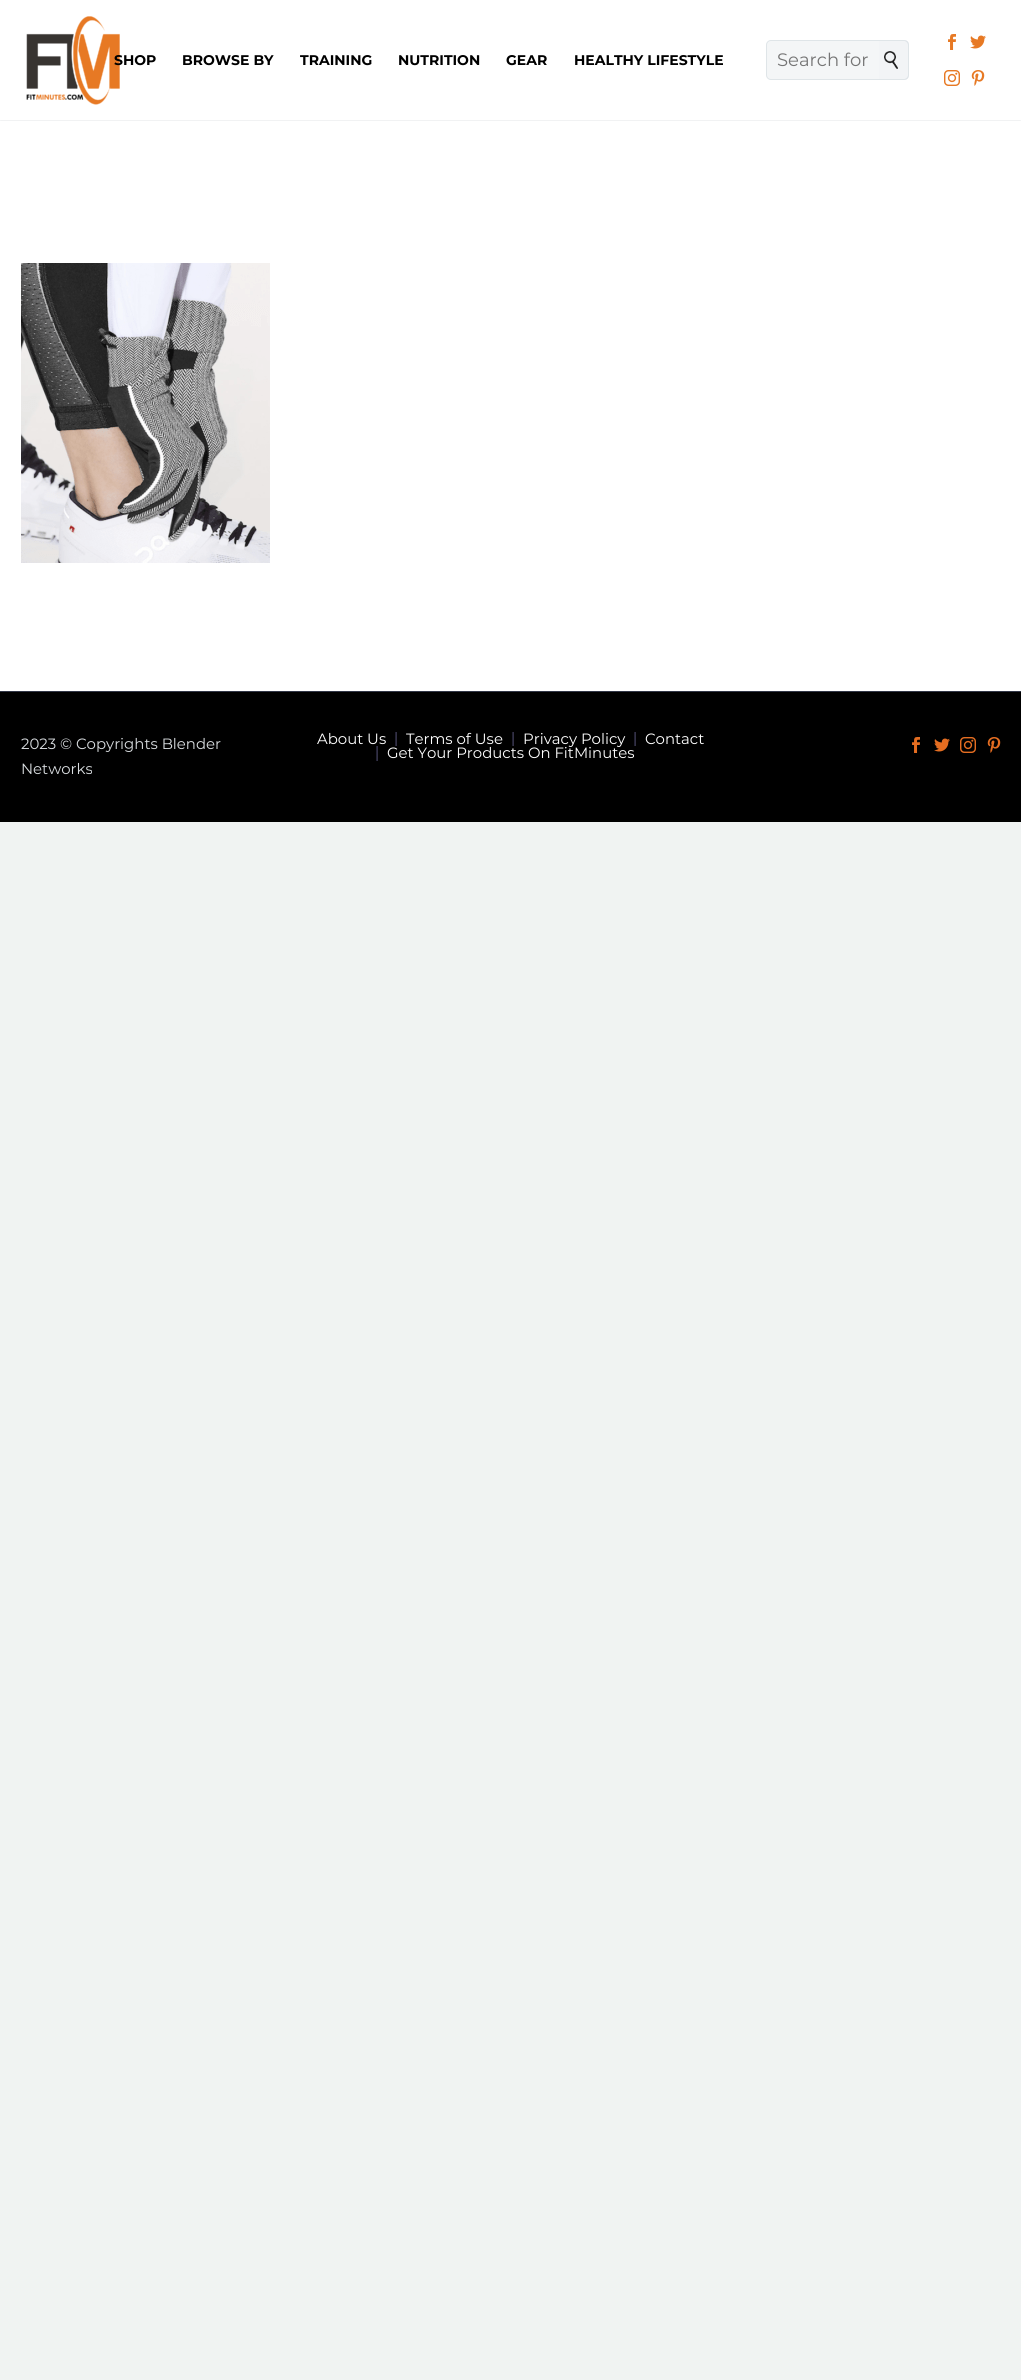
#include <cairo/cairo.h>
#include <math.h>
#include <stddef.h>


static void rounded_rect(cairo_t *cr, double x, double y, double w, double h, double r) {
  cairo_new_sub_path(cr);
  cairo_arc(cr, x + w - r, y + h - r, r, 0, M_PI / 2);
  cairo_arc(cr, x + r, y + h - r, r, M_PI / 2, M_PI);
  cairo_arc(cr, x + r, y + r, r, M_PI, 1.5 * M_PI);
  cairo_arc(cr, x + w - r, y + r, r, 1.5 * M_PI, 2 * M_PI);
  cairo_close_path(cr);
}

static void draw_shadow(cairo_t *cr, double x, double y, double w, double h, double r, double blur, double alpha) {
  cairo_push_group_with_content(cr, CAIRO_CONTENT_ALPHA);
  cairo_set_operator(cr, CAIRO_OPERATOR_SOURCE);
  for (int i = 15; i >= -15 && fmin(w, h) + blur * i / 3 > 0; i -= 2) {
    double e = blur * i / 6;
    cairo_set_source_rgba(cr, 0, 0, 0, alpha * erfc((i - 1) / 8.5) / 2);
    rounded_rect(cr, x - e, y - e, w + 2 * e, h + 2 * e, fmax(0, fmin(r + e + blur * .6, fmin(w, h) / 2 + e)));
    cairo_fill(cr);
  }
  cairo_pattern_t *soft = cairo_pop_group(cr);
  cairo_mask(cr, soft);
  cairo_pattern_destroy(soft);
}

static void draw_image(cairo_t *cr, const char *path, double x, double y, double w, double h) {
  cairo_surface_t *image = cairo_image_surface_create_from_png(path);
  cairo_save(cr);
  cairo_set_source_surface(cr, image, x, y);
  cairo_rectangle(cr, x, y, w, h);
  cairo_fill(cr);
  cairo_restore(cr);
  cairo_surface_destroy(image);
}

static void draw(cairo_t *cr) {
  cairo_set_source_rgb(cr, 240 / 255.0, 243 / 255.0, 242 / 255.0);
  cairo_paint(cr);
  cairo_set_source_rgb(cr, 1, 1, 1);
  cairo_rectangle(cr, 0, 0, 1021, 691);
  cairo_fill(cr);
  cairo_save(cr);
  cairo_rectangle(cr, 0, 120, 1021, 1);
  cairo_clip(cr);
  cairo_set_source_rgb(cr, 56 / 255.0, 69 / 255.0, 84 / 255.0);
  draw_shadow(cr, 0, 0, 1021, 120, 0, 1, 0.2);
  cairo_restore(cr);
  draw_image(cr, "images/1.png", 26, 16, 94, 89);
  cairo_set_source_rgb(cr, 244 / 255.0, 246 / 255.0, 247 / 255.0);
  cairo_new_path(cr);
  cairo_move_to(cr, 771, 40.5);
  cairo_line_to(cr, 888.5, 40.5);
  cairo_line_to(cr, 888.5, 79.5);
  cairo_line_to(cr, 771, 79.5);
  cairo_curve_to(cr, 768.5, 79.5, 766.5, 77.5, 766.5, 75);
  cairo_line_to(cr, 766.5, 45);
  cairo_curve_to(cr, 766.5, 42.5, 768.5, 40.5, 771, 40.5);
  cairo_close_path(cr);
  cairo_fill_preserve(cr);
  cairo_set_source_rgb(cr, 223 / 255.0, 229 / 255.0, 232 / 255.0);
  cairo_set_line_width(cr, 1);
  cairo_stroke(cr);
  cairo_set_source_rgb(cr, 242 / 255.0, 244 / 255.0, 246 / 255.0);
  cairo_new_path(cr);
  cairo_move_to(cr, 879, 40);
  cairo_line_to(cr, 904, 40);
  cairo_curve_to(cr, 907, 40, 909, 42, 909, 45);
  cairo_line_to(cr, 909, 75);
  cairo_curve_to(cr, 909, 78, 907, 80, 904, 80);
  cairo_line_to(cr, 879, 80);
  cairo_close_path(cr);
  cairo_fill(cr);
  cairo_set_source_rgb(cr, 223 / 255.0, 229 / 255.0, 232 / 255.0);
  cairo_set_fill_rule(cr, CAIRO_FILL_RULE_EVEN_ODD);
  cairo_new_path(cr);
  cairo_move_to(cr, 879, 40);
  cairo_line_to(cr, 904, 40);
  cairo_curve_to(cr, 907, 40, 909, 42, 909, 45);
  cairo_line_to(cr, 909, 75);
  cairo_curve_to(cr, 909, 78, 907, 80, 904, 80);
  cairo_line_to(cr, 879, 80);
  cairo_close_path(cr);
  cairo_move_to(cr, 879, 41);
  cairo_line_to(cr, 904, 41);
  cairo_curve_to(cr, 906, 41, 908, 43, 908, 45);
  cairo_line_to(cr, 908, 75);
  cairo_curve_to(cr, 908, 77, 906, 79, 904, 79);
  cairo_line_to(cr, 879, 79);
  cairo_close_path(cr);
  cairo_fill(cr);
  draw_image(cr, "images/2.png", 884, 51, 14, 18);
  draw_image(cr, "images/3.png", 948, 34, 8, 16);
  draw_image(cr, "images/4.png", 970, 35, 16, 14);
  draw_image(cr, "images/5.png", 944, 70, 16, 16);
  draw_image(cr, "images/6.png", 971, 70, 14, 16);
  draw_image(cr, "images/7.png", 21, 263, 249, 300);
  cairo_set_source_rgb(cr, 0, 0, 0);
  cairo_rectangle(cr, 0, 692, 1021, 130);
  cairo_fill(cr);
  cairo_set_source_rgb(cr, 49 / 255.0, 54 / 255.0, 70 / 255.0);
  cairo_rectangle(cr, 0, 691, 1021, 1);
  cairo_fill(cr);
  cairo_set_source_rgb(cr, 51 / 255.0, 49 / 255.0, 70 / 255.0);
  cairo_rectangle(cr, 396, 732, 1, 14);
  cairo_fill(cr);
  cairo_set_source_rgb(cr, 35 / 255.0, 34 / 255.0, 52 / 255.0);
  cairo_rectangle(cr, 395, 732, 1, 14);
  cairo_fill(cr);
  cairo_set_source_rgb(cr, 51 / 255.0, 49 / 255.0, 70 / 255.0);
  cairo_rectangle(cr, 513, 732, 1, 14);
  cairo_fill(cr);
  cairo_set_source_rgb(cr, 35 / 255.0, 34 / 255.0, 52 / 255.0);
  cairo_rectangle(cr, 512, 732, 1, 14);
  cairo_fill(cr);
  cairo_set_source_rgb(cr, 51 / 255.0, 49 / 255.0, 70 / 255.0);
  cairo_rectangle(cr, 635, 732, 1, 14);
  cairo_fill(cr);
  cairo_set_source_rgb(cr, 35 / 255.0, 34 / 255.0, 52 / 255.0);
  cairo_rectangle(cr, 634, 732, 1, 14);
  cairo_fill(cr);
  cairo_set_source_rgb(cr, 51 / 255.0, 49 / 255.0, 70 / 255.0);
  cairo_rectangle(cr, 377, 746, 1, 15);
  cairo_fill(cr);
  cairo_set_source_rgb(cr, 35 / 255.0, 34 / 255.0, 52 / 255.0);
  cairo_rectangle(cr, 376, 746, 1, 15);
  cairo_fill(cr);
  draw_image(cr, "images/8.png", 912, 737, 8, 16);
  draw_image(cr, "images/9.png", 934, 738, 16, 14);
  draw_image(cr, "images/10.png", 960, 737, 16, 16);
  draw_image(cr, "images/11.png", 987, 737, 14, 16);
  cairo_select_font_face(cr, "Montserrat", CAIRO_FONT_SLANT_NORMAL, CAIRO_FONT_WEIGHT_BOLD);
  cairo_set_font_size(cr, 14);
  cairo_set_source_rgb(cr, 0, 0, 0);
  cairo_move_to(cr, 114, 65);
  cairo_show_text(cr, "SHOP");
  cairo_move_to(cr, 182, 65);
  cairo_show_text(cr, "BROWSE BY");
  cairo_move_to(cr, 300, 65);
  cairo_show_text(cr, "TRAINING");
  cairo_move_to(cr, 398, 65);
  cairo_show_text(cr, "NUTRITION");
  cairo_move_to(cr, 506, 65);
  cairo_show_text(cr, "GEAR");
  cairo_move_to(cr, 574, 65);
  cairo_show_text(cr, "HEALTHY LIFESTYLE");
  cairo_select_font_face(cr, "Montserrat", CAIRO_FONT_SLANT_NORMAL, CAIRO_FONT_WEIGHT_NORMAL);
  cairo_set_font_size(cr, 18);
  cairo_set_source_rgb(cr, 117 / 255.0, 117 / 255.0, 117 / 255.0);
  cairo_move_to(cr, 777, 66);
  cairo_show_text(cr, "Search for");
  cairo_set_font_size(cr, 14.9);
  cairo_set_source_rgb(cr, 217 / 255.0, 221 / 255.0, 224 / 255.0);
  cairo_move_to(cr, 21, 749);
  cairo_show_text(cr, "2023 © Copyrights Blender");
  cairo_move_to(cr, 21, 774);
  cairo_show_text(cr, "Networks");
  cairo_set_source_rgb(cr, 1, 1, 1);
  cairo_move_to(cr, 317, 744);
  cairo_show_text(cr, "About Us");
  cairo_move_to(cr, 406, 744);
  cairo_show_text(cr, "Terms of Use");
  cairo_move_to(cr, 523, 744);
  cairo_show_text(cr, "Privacy Policy");
  cairo_move_to(cr, 645, 744);
  cairo_show_text(cr, "Contact");
  cairo_move_to(cr, 387, 758);
  cairo_show_text(cr, "Get Your Products On FitMinutes");
}

int main(void) {
  cairo_surface_t *surface = cairo_image_surface_create(CAIRO_FORMAT_RGB24, 1021, 2380);
  cairo_t *cr = cairo_create(surface);
  cairo_font_options_t *options = cairo_font_options_create();
  cairo_font_options_set_hint_metrics(options, CAIRO_HINT_METRICS_OFF);
  cairo_font_options_set_hint_style(options, CAIRO_HINT_STYLE_NONE);
  cairo_set_font_options(cr, options);
  cairo_set_miter_limit(cr, 4);
  draw(cr);
  cairo_surface_write_to_png(surface, "out.png");
  cairo_font_options_destroy(options);
  cairo_destroy(cr);
  cairo_surface_destroy(surface);
  return 0;
}
